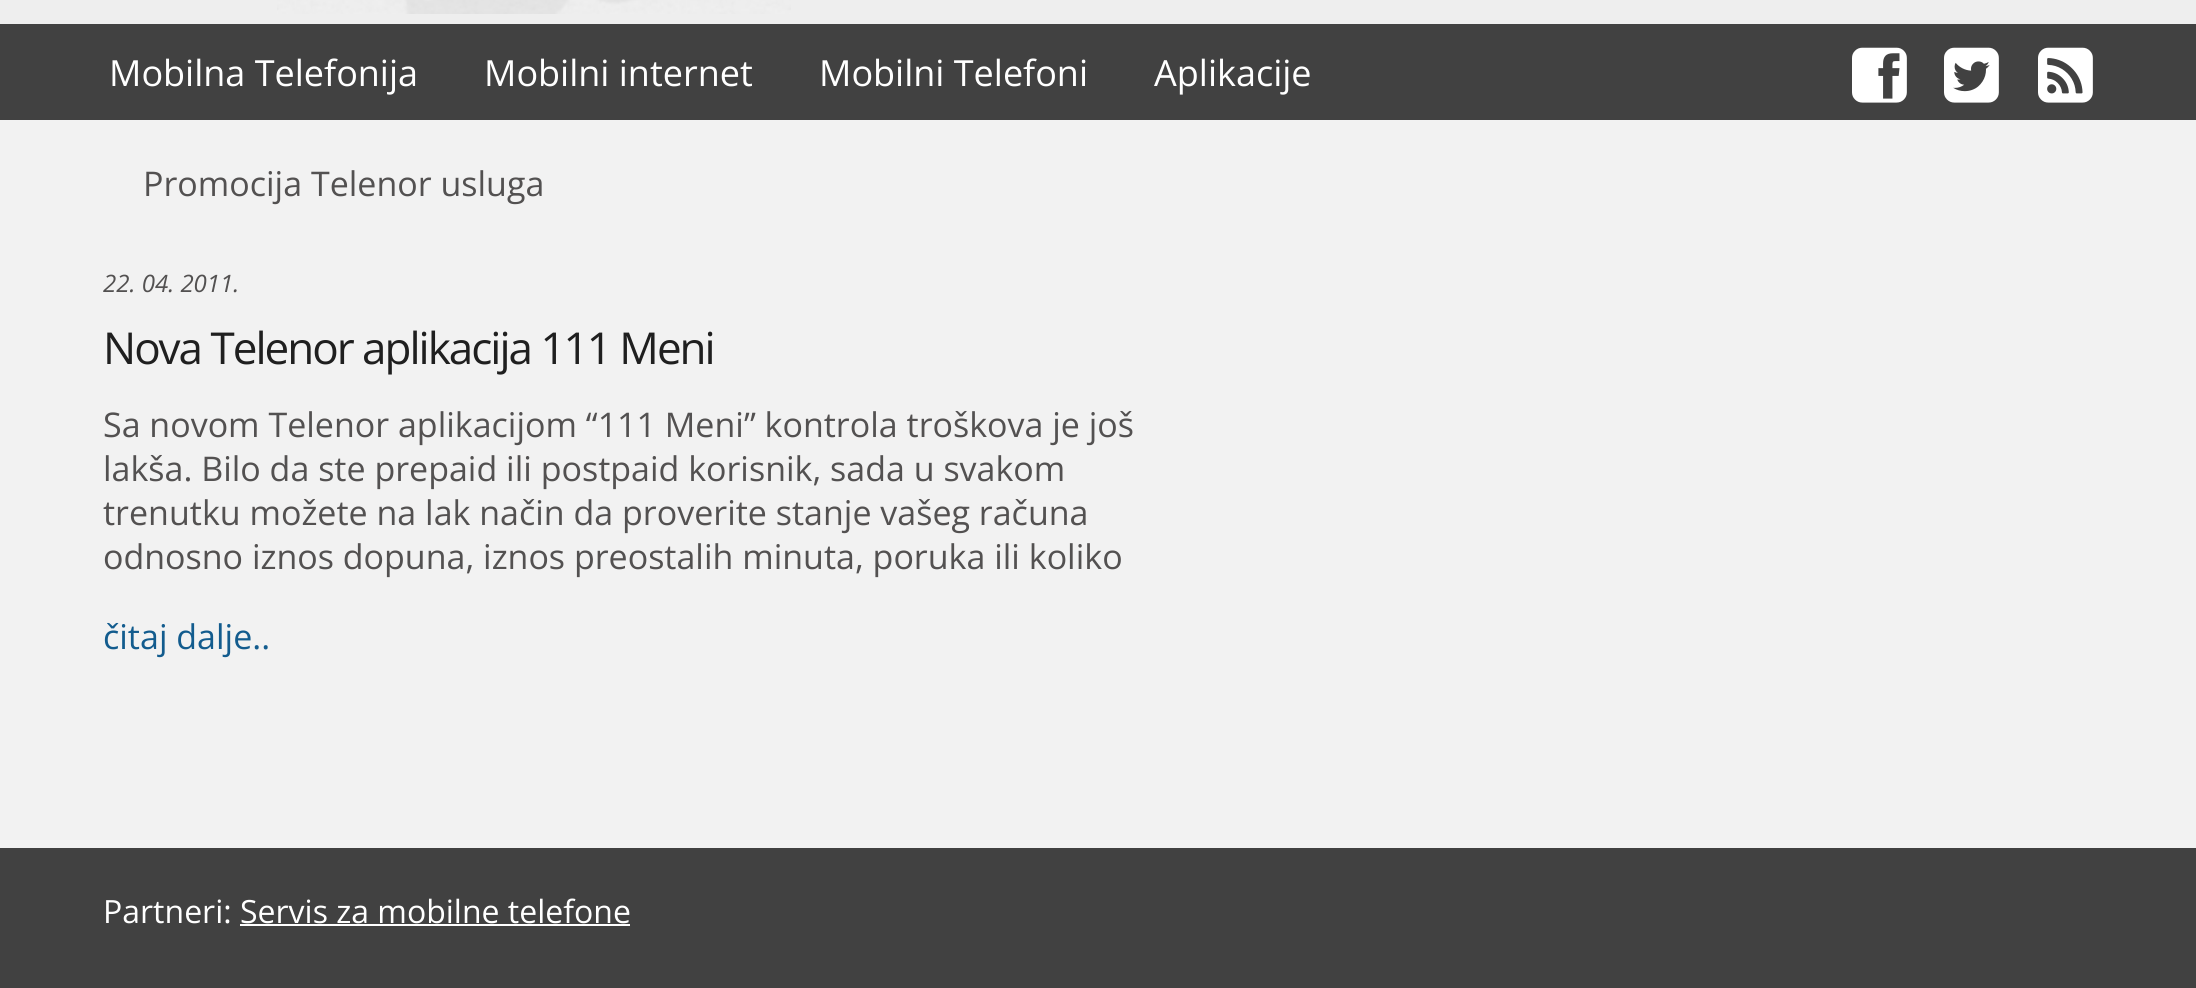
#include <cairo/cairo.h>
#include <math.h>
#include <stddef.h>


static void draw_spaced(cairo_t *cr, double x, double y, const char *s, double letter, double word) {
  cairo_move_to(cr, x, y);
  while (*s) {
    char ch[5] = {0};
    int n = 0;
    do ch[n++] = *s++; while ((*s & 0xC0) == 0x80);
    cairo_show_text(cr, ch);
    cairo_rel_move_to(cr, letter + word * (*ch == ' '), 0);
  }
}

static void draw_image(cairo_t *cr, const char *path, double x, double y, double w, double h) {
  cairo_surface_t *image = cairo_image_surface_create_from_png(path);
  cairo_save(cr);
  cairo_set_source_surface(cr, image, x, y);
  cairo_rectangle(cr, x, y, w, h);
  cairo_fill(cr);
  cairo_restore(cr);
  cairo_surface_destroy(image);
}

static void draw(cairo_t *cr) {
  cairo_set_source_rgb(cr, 242 / 255.0, 242 / 255.0, 242 / 255.0);
  cairo_paint(cr);
  cairo_set_source_rgb(cr, 238 / 255.0, 238 / 255.0, 238 / 255.0);
  cairo_rectangle(cr, 0, 0, 2196, 24);
  cairo_fill(cr);
  draw_image(cr, "images/1.png", 277, 0, 514, 14);
  cairo_set_source_rgb(cr, 65 / 255.0, 65 / 255.0, 65 / 255.0);
  cairo_rectangle(cr, 0, 24, 2196, 96);
  cairo_fill(cr);
  draw_image(cr, "images/2.png", 1852, 47, 55, 56);
  draw_image(cr, "images/3.png", 1944, 47, 55, 56);
  draw_image(cr, "images/4.png", 2038, 47, 55, 56);
  cairo_rectangle(cr, 0, 848, 2196, 140);
  cairo_fill(cr);
  cairo_set_source_rgb(cr, 1, 1, 1);
  cairo_rectangle(cr, 240, 924, 390, 2);
  cairo_fill(cr);
  cairo_select_font_face(cr, "Open Sans", CAIRO_FONT_SLANT_NORMAL, CAIRO_FONT_WEIGHT_NORMAL);
  cairo_set_font_size(cr, 36);
  cairo_move_to(cr, 109, 86);
  cairo_show_text(cr, "Mobilna Telefonija");
  cairo_move_to(cr, 484, 86);
  cairo_show_text(cr, "Mobilni internet");
  cairo_move_to(cr, 819, 86);
  cairo_show_text(cr, "Mobilni Telefoni");
  cairo_move_to(cr, 1154, 86);
  cairo_show_text(cr, "Aplikacije");
  cairo_set_font_size(cr, 34);
  cairo_set_source_rgb(cr, 83 / 255.0, 81 / 255.0, 81 / 255.0);
  cairo_move_to(cr, 143, 196);
  cairo_show_text(cr, "Promocija Telenor usluga");
  cairo_select_font_face(cr, "Open Sans", CAIRO_FONT_SLANT_ITALIC, CAIRO_FONT_WEIGHT_NORMAL);
  cairo_set_font_size(cr, 24);
  cairo_move_to(cr, 103, 292);
  cairo_show_text(cr, "22. 04. 2011.");
  cairo_select_font_face(cr, "Open Sans", CAIRO_FONT_SLANT_NORMAL, CAIRO_FONT_WEIGHT_NORMAL);
  cairo_set_font_size(cr, 44);
  cairo_set_source_rgb(cr, 31 / 255.0, 31 / 255.0, 31 / 255.0);
  draw_spaced(cr, 103, 364, "Nova Telenor aplikacija 111 Meni", -2, 0);
  cairo_set_font_size(cr, 34);
  cairo_set_source_rgb(cr, 83 / 255.0, 81 / 255.0, 81 / 255.0);
  cairo_move_to(cr, 103, 437);
  cairo_show_text(cr, "Sa novom Telenor aplikacijom “111 Meni” kontrola troškova je još");
  cairo_move_to(cr, 103, 481);
  cairo_show_text(cr, "lakša. Bilo da ste prepaid ili postpaid korisnik, sada u svakom");
  cairo_move_to(cr, 103, 525);
  cairo_show_text(cr, "trenutku možete na lak način da proverite stanje vašeg računa");
  cairo_move_to(cr, 103, 569);
  cairo_show_text(cr, "odnosno iznos dopuna, iznos preostalih minuta, poruka ili koliko");
  cairo_set_source_rgb(cr, 19 / 255.0, 92 / 255.0, 142 / 255.0);
  cairo_move_to(cr, 103, 649);
  cairo_show_text(cr, "čitaj dalje..");
  cairo_set_font_size(cr, 32);
  cairo_set_source_rgb(cr, 1, 1, 1);
  cairo_move_to(cr, 103, 923);
  cairo_show_text(cr, "Partneri: Servis za mobilne telefone");
}

int main(void) {
  cairo_surface_t *surface = cairo_image_surface_create(CAIRO_FORMAT_RGB24, 2196, 988);
  cairo_t *cr = cairo_create(surface);
  cairo_font_options_t *options = cairo_font_options_create();
  cairo_font_options_set_hint_metrics(options, CAIRO_HINT_METRICS_OFF);
  cairo_font_options_set_hint_style(options, CAIRO_HINT_STYLE_NONE);
  cairo_set_font_options(cr, options);
  cairo_set_miter_limit(cr, 4);
  draw(cr);
  cairo_surface_write_to_png(surface, "out.png");
  cairo_font_options_destroy(options);
  cairo_destroy(cr);
  cairo_surface_destroy(surface);
  return 0;
}
